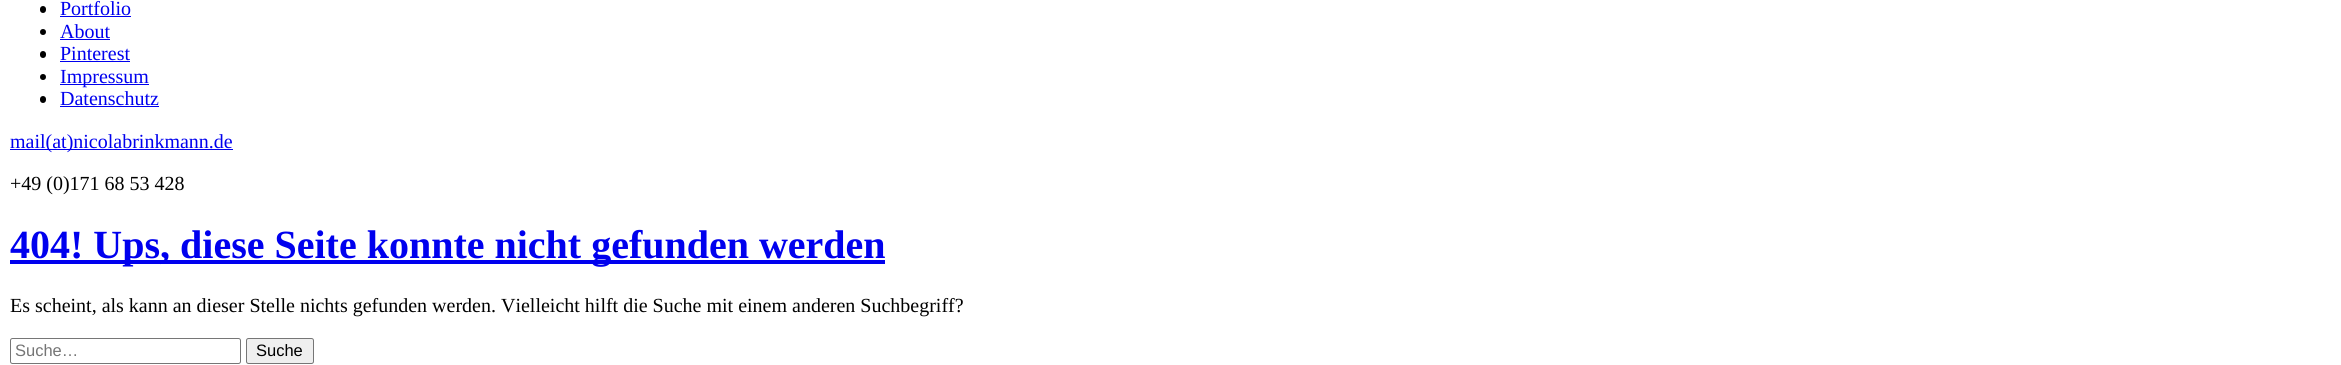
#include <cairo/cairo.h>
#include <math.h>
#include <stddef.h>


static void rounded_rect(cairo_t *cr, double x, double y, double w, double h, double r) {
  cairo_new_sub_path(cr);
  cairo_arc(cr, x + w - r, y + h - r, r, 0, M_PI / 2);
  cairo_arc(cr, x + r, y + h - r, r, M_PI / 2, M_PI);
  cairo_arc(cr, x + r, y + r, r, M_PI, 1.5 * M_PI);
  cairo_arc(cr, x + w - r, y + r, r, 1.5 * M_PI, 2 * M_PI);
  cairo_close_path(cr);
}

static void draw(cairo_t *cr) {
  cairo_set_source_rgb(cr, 1, 1, 1);
  cairo_paint(cr);
  cairo_set_source_rgb(cr, 0, 0, 0);
  rounded_rect(cr, 40, 6, 6, 7, 3);
  cairo_fill(cr);
  cairo_set_source_rgb(cr, 0, 0, 238 / 255.0);
  cairo_rectangle(cr, 60, 16, 71, 1);
  cairo_fill(cr);
  cairo_set_source_rgb(cr, 0, 0, 0);
  cairo_arc(cr, 43, 32, 3, 0, 2 * M_PI);
  cairo_fill(cr);
  cairo_set_source_rgb(cr, 0, 0, 238 / 255.0);
  cairo_rectangle(cr, 60, 39, 50, 1);
  cairo_fill(cr);
  cairo_set_source_rgb(cr, 0, 0, 0);
  rounded_rect(cr, 40, 51, 6, 7, 3);
  cairo_fill(cr);
  cairo_set_source_rgb(cr, 0, 0, 238 / 255.0);
  cairo_rectangle(cr, 60, 61, 70, 1);
  cairo_fill(cr);
  cairo_set_source_rgb(cr, 0, 0, 0);
  cairo_arc(cr, 43, 77, 3, 0, 2 * M_PI);
  cairo_fill(cr);
  cairo_set_source_rgb(cr, 0, 0, 238 / 255.0);
  cairo_rectangle(cr, 60, 84, 89, 1);
  cairo_fill(cr);
  cairo_set_source_rgb(cr, 0, 0, 0);
  rounded_rect(cr, 40, 96, 6, 7, 3);
  cairo_fill(cr);
  cairo_set_source_rgb(cr, 0, 0, 238 / 255.0);
  cairo_rectangle(cr, 60, 106, 99, 1);
  cairo_fill(cr);
  cairo_rectangle(cr, 10, 149, 223, 1);
  cairo_fill(cr);
  cairo_rectangle(cr, 10, 260, 875, 4);
  cairo_fill(cr);
  rounded_rect(cr, 10.5, 338.5, 230, 25, 2);
  cairo_set_source_rgb(cr, 118 / 255.0, 118 / 255.0, 118 / 255.0);
  cairo_set_line_width(cr, 1);
  cairo_stroke(cr);
  cairo_set_source_rgb(cr, 239 / 255.0, 239 / 255.0, 239 / 255.0);
  rounded_rect(cr, 246.5, 338.5, 67, 25, 2);
  cairo_fill_preserve(cr);
  cairo_set_source_rgb(cr, 118 / 255.0, 118 / 255.0, 118 / 255.0);
  cairo_stroke(cr);
  cairo_select_font_face(cr, "Liberation Serif", CAIRO_FONT_SLANT_NORMAL, CAIRO_FONT_WEIGHT_NORMAL);
  cairo_set_font_size(cr, 20);
  cairo_set_source_rgb(cr, 0, 0, 238 / 255.0);
  cairo_move_to(cr, 60, 15);
  cairo_show_text(cr, "Portfolio");
  cairo_move_to(cr, 60, 38);
  cairo_show_text(cr, "About");
  cairo_move_to(cr, 60, 60);
  cairo_show_text(cr, "Pinterest");
  cairo_move_to(cr, 60, 83);
  cairo_show_text(cr, "Impressum");
  cairo_move_to(cr, 60, 105);
  cairo_show_text(cr, "Datenschutz");
  cairo_move_to(cr, 10, 148);
  cairo_show_text(cr, "mail(at)nicolabrinkmann.de");
  cairo_set_source_rgb(cr, 0, 0, 0);
  cairo_move_to(cr, 10, 190);
  cairo_show_text(cr, "+49 (0)171 68 53 428");
  cairo_select_font_face(cr, "Liberation Serif", CAIRO_FONT_SLANT_NORMAL, CAIRO_FONT_WEIGHT_BOLD);
  cairo_set_font_size(cr, 40);
  cairo_set_source_rgb(cr, 0, 0, 238 / 255.0);
  cairo_move_to(cr, 10, 258);
  cairo_show_text(cr, "404! Ups, diese Seite konnte nicht gefunden werden");
  cairo_select_font_face(cr, "Liberation Serif", CAIRO_FONT_SLANT_NORMAL, CAIRO_FONT_WEIGHT_NORMAL);
  cairo_set_font_size(cr, 20);
  cairo_set_source_rgb(cr, 0, 0, 0);
  cairo_move_to(cr, 10, 312);
  cairo_show_text(cr, "Es scheint, als kann an dieser Stelle nichts gefunden werden. Vielleicht hilft die Suche mit einem anderen Suchbegriff?");
  cairo_select_font_face(cr, "Liberation Sans", CAIRO_FONT_SLANT_NORMAL, CAIRO_FONT_WEIGHT_NORMAL);
  cairo_set_font_size(cr, 16.5);
  cairo_set_source_rgb(cr, 117 / 255.0, 117 / 255.0, 117 / 255.0);
  cairo_move_to(cr, 15, 356);
  cairo_show_text(cr, "Suche…");
  cairo_set_source_rgb(cr, 0, 0, 0);
  cairo_move_to(cr, 256, 356);
  cairo_show_text(cr, "Suche");
}

int main(void) {
  cairo_surface_t *surface = cairo_image_surface_create(CAIRO_FORMAT_RGB24, 2341, 365);
  cairo_t *cr = cairo_create(surface);
  cairo_font_options_t *options = cairo_font_options_create();
  cairo_font_options_set_hint_metrics(options, CAIRO_HINT_METRICS_OFF);
  cairo_font_options_set_hint_style(options, CAIRO_HINT_STYLE_NONE);
  cairo_set_font_options(cr, options);
  cairo_set_miter_limit(cr, 4);
  draw(cr);
  cairo_surface_write_to_png(surface, "out.png");
  cairo_font_options_destroy(options);
  cairo_destroy(cr);
  cairo_surface_destroy(surface);
  return 0;
}
